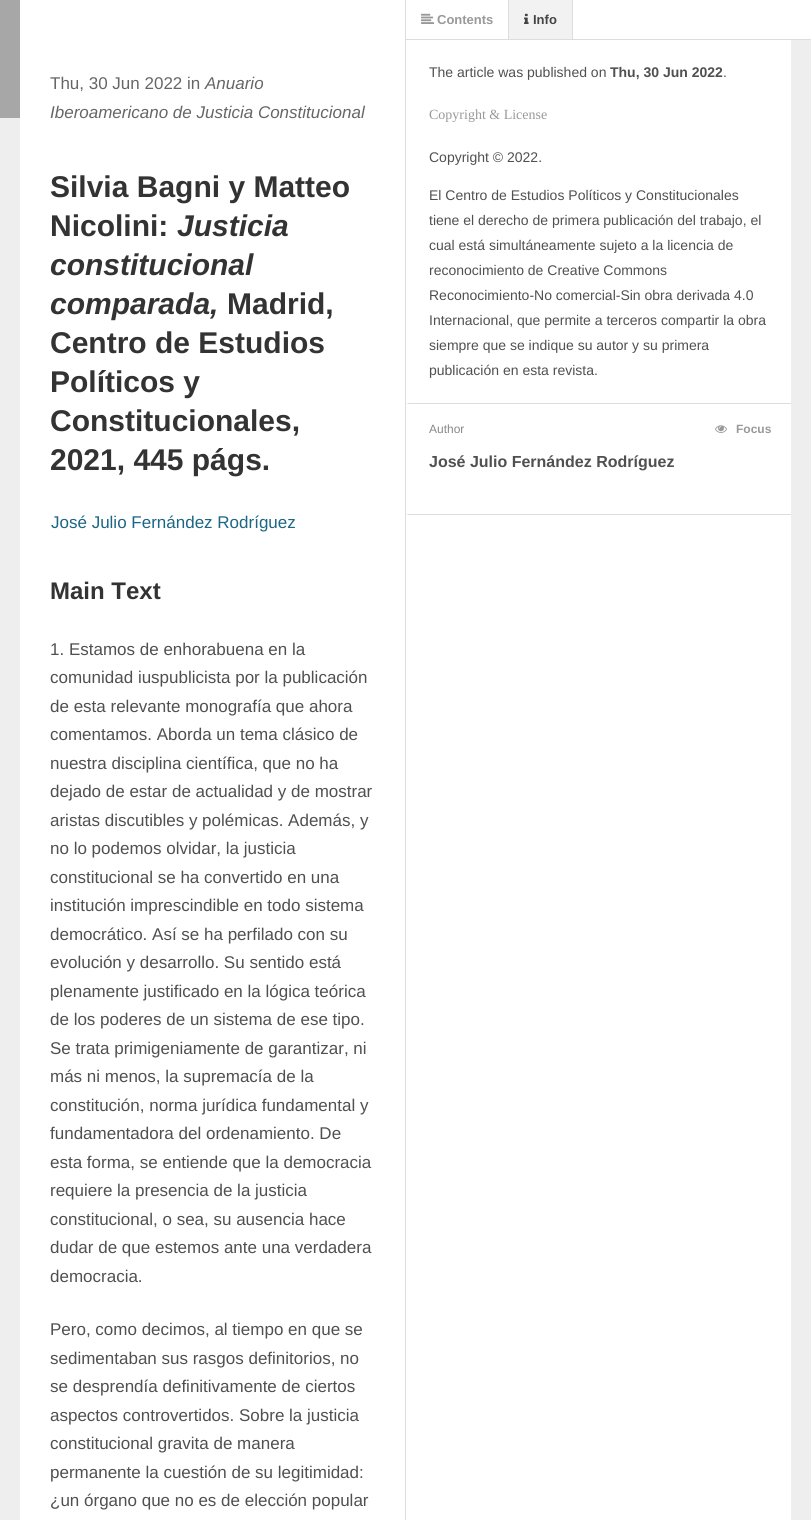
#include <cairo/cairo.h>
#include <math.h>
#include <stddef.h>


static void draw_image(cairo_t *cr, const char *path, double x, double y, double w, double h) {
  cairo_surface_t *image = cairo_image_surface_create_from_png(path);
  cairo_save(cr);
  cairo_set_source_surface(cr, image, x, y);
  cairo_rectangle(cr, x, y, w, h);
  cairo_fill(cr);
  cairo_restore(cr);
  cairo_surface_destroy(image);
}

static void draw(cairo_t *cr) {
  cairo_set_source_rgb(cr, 1, 1, 1);
  cairo_paint(cr);
  cairo_set_source_rgb(cr, 221 / 255.0, 221 / 255.0, 221 / 255.0);
  cairo_rectangle(cr, 405, 0, 1, 1520);
  cairo_fill(cr);
  cairo_set_source_rgb(cr, 238 / 255.0, 238 / 255.0, 238 / 255.0);
  cairo_rectangle(cr, 0, 118, 20, 1402);
  cairo_fill(cr);
  cairo_set_source_rgb(cr, 167 / 255.0, 167 / 255.0, 167 / 255.0);
  cairo_rectangle(cr, 0, 0, 20, 118);
  cairo_fill(cr);
  cairo_set_source_rgb(cr, 221 / 255.0, 221 / 255.0, 221 / 255.0);
  cairo_rectangle(cr, 406, 39, 405, 1);
  cairo_fill(cr);
  cairo_rectangle(cr, 508, 0, 1, 39);
  cairo_fill(cr);
  draw_image(cr, "images/1.png", 421, 13, 13, 11);
  cairo_set_source_rgb(cr, 242 / 255.0, 242 / 255.0, 242 / 255.0);
  cairo_rectangle(cr, 509, 0, 63, 39);
  cairo_fill(cr);
  cairo_save(cr);
  cairo_rectangle(cr, 406, 0, 405, 39);
  cairo_clip(cr);
  cairo_set_source_rgb(cr, 221 / 255.0, 221 / 255.0, 221 / 255.0);
  cairo_new_path(cr);
  cairo_move_to(cr, 573, 0);
  cairo_line_to(cr, 573, 43);
  cairo_line_to(cr, 572, 40);
  cairo_line_to(cr, 572, 0);
  cairo_close_path(cr);
  cairo_fill(cr);
  cairo_restore(cr);
  draw_image(cr, "images/2.png", 524, 13, 5, 11);
  cairo_set_source_rgb(cr, 221 / 255.0, 221 / 255.0, 221 / 255.0);
  cairo_new_path(cr);
  cairo_move_to(cr, 791, 404);
  cairo_line_to(cr, 406, 404);
  cairo_line_to(cr, 409, 403);
  cairo_line_to(cr, 791, 403);
  cairo_close_path(cr);
  cairo_fill(cr);
  cairo_new_path(cr);
  cairo_move_to(cr, 791, 515);
  cairo_line_to(cr, 406, 515);
  cairo_line_to(cr, 409, 514);
  cairo_line_to(cr, 791, 514);
  cairo_close_path(cr);
  cairo_fill(cr);
  draw_image(cr, "images/3.png", 715, 425, 12, 8);
  cairo_set_source_rgb(cr, 238 / 255.0, 238 / 255.0, 238 / 255.0);
  cairo_rectangle(cr, 791, 40, 20, 1480);
  cairo_fill(cr);
  cairo_select_font_face(cr, "Liberation Sans", CAIRO_FONT_SLANT_NORMAL, CAIRO_FONT_WEIGHT_NORMAL);
  cairo_set_font_size(cr, 17);
  cairo_set_source_rgb(cr, 102 / 255.0, 102 / 255.0, 102 / 255.0);
  cairo_move_to(cr, 50, 89);
  cairo_show_text(cr, "Thu, 30 Jun 2022 in");
  cairo_select_font_face(cr, "Liberation Sans", CAIRO_FONT_SLANT_ITALIC, CAIRO_FONT_WEIGHT_NORMAL);
  cairo_move_to(cr, 205, 89);
  cairo_show_text(cr, "Anuario");
  cairo_move_to(cr, 50, 118);
  cairo_show_text(cr, "Iberoamericano de Justicia Constitucional");
  cairo_select_font_face(cr, "Liberation Sans", CAIRO_FONT_SLANT_NORMAL, CAIRO_FONT_WEIGHT_BOLD);
  cairo_set_font_size(cr, 30);
  cairo_set_source_rgb(cr, 51 / 255.0, 51 / 255.0, 51 / 255.0);
  cairo_move_to(cr, 50, 197);
  cairo_show_text(cr, "Silvia Bagni y Matteo");
  cairo_move_to(cr, 50, 236);
  cairo_show_text(cr, "Nicolini:");
  cairo_select_font_face(cr, "Liberation Sans", CAIRO_FONT_SLANT_ITALIC, CAIRO_FONT_WEIGHT_BOLD);
  cairo_move_to(cr, 177, 236);
  cairo_show_text(cr, "Justicia");
  cairo_move_to(cr, 50, 275);
  cairo_show_text(cr, "constitucional");
  cairo_move_to(cr, 50, 314);
  cairo_show_text(cr, "comparada,");
  cairo_select_font_face(cr, "Liberation Sans", CAIRO_FONT_SLANT_NORMAL, CAIRO_FONT_WEIGHT_BOLD);
  cairo_move_to(cr, 227, 314);
  cairo_show_text(cr, "Madrid,");
  cairo_move_to(cr, 50, 353);
  cairo_show_text(cr, "Centro de Estudios");
  cairo_move_to(cr, 50, 392);
  cairo_show_text(cr, "Políticos y");
  cairo_move_to(cr, 50, 431);
  cairo_show_text(cr, "Constitucionales,");
  cairo_move_to(cr, 50, 470);
  cairo_show_text(cr, "2021, 445 págs.");
  cairo_select_font_face(cr, "Liberation Sans", CAIRO_FONT_SLANT_NORMAL, CAIRO_FONT_WEIGHT_NORMAL);
  cairo_set_font_size(cr, 17);
  cairo_set_source_rgb(cr, 27 / 255.0, 102 / 255.0, 133 / 255.0);
  cairo_move_to(cr, 51, 528);
  cairo_show_text(cr, "José Julio Fernández Rodríguez");
  cairo_select_font_face(cr, "Liberation Sans", CAIRO_FONT_SLANT_NORMAL, CAIRO_FONT_WEIGHT_BOLD);
  cairo_set_font_size(cr, 24);
  cairo_set_source_rgb(cr, 51 / 255.0, 51 / 255.0, 51 / 255.0);
  cairo_move_to(cr, 50, 599);
  cairo_show_text(cr, "Main Text");
  cairo_select_font_face(cr, "Liberation Sans", CAIRO_FONT_SLANT_NORMAL, CAIRO_FONT_WEIGHT_NORMAL);
  cairo_set_font_size(cr, 17);
  cairo_set_source_rgb(cr, 80 / 255.0, 80 / 255.0, 80 / 255.0);
  cairo_move_to(cr, 50, 655);
  cairo_show_text(cr, "1. Estamos de enhorabuena en la");
  cairo_move_to(cr, 50, 683);
  cairo_show_text(cr, "comunidad iuspublicista por la publicación");
  cairo_move_to(cr, 50, 712);
  cairo_show_text(cr, "de esta relevante monografía que ahora");
  cairo_move_to(cr, 50, 740);
  cairo_show_text(cr, "comentamos. Aborda un tema clásico de");
  cairo_move_to(cr, 50, 769);
  cairo_show_text(cr, "nuestra disciplina científica, que no ha");
  cairo_move_to(cr, 50, 797);
  cairo_show_text(cr, "dejado de estar de actualidad y de mostrar");
  cairo_move_to(cr, 50, 826);
  cairo_show_text(cr, "aristas discutibles y polémicas. Además, y");
  cairo_move_to(cr, 50, 854);
  cairo_show_text(cr, "no lo podemos olvidar, la justicia");
  cairo_move_to(cr, 50, 883);
  cairo_show_text(cr, "constitucional se ha convertido en una");
  cairo_move_to(cr, 50, 911);
  cairo_show_text(cr, "institución imprescindible en todo sistema");
  cairo_move_to(cr, 50, 940);
  cairo_show_text(cr, "democrático. Así se ha perfilado con su");
  cairo_move_to(cr, 50, 968);
  cairo_show_text(cr, "evolución y desarrollo. Su sentido está");
  cairo_move_to(cr, 50, 997);
  cairo_show_text(cr, "plenamente justificado en la lógica teórica");
  cairo_move_to(cr, 50, 1025);
  cairo_show_text(cr, "de los poderes de un sistema de ese tipo.");
  cairo_move_to(cr, 50, 1054);
  cairo_show_text(cr, "Se trata primigeniamente de garantizar, ni");
  cairo_move_to(cr, 50, 1082);
  cairo_show_text(cr, "más ni menos, la supremacía de la");
  cairo_move_to(cr, 50, 1111);
  cairo_show_text(cr, "constitución, norma jurídica fundamental y");
  cairo_move_to(cr, 50, 1139);
  cairo_show_text(cr, "fundamentadora del ordenamiento. De");
  cairo_move_to(cr, 50, 1168);
  cairo_show_text(cr, "esta forma, se entiende que la democracia");
  cairo_move_to(cr, 50, 1196);
  cairo_show_text(cr, "requiere la presencia de la justicia");
  cairo_move_to(cr, 50, 1225);
  cairo_show_text(cr, "constitucional, o sea, su ausencia hace");
  cairo_move_to(cr, 50, 1253);
  cairo_show_text(cr, "dudar de que estemos ante una verdadera");
  cairo_move_to(cr, 50, 1282);
  cairo_show_text(cr, "democracia.");
  cairo_move_to(cr, 50, 1335);
  cairo_show_text(cr, "Pero, como decimos, al tiempo en que se");
  cairo_move_to(cr, 50, 1364);
  cairo_show_text(cr, "sedimentaban sus rasgos definitorios, no");
  cairo_move_to(cr, 50, 1392);
  cairo_show_text(cr, "se desprendía definitivamente de ciertos");
  cairo_move_to(cr, 50, 1421);
  cairo_show_text(cr, "aspectos controvertidos. Sobre la justicia");
  cairo_move_to(cr, 50, 1449);
  cairo_show_text(cr, "constitucional gravita de manera");
  cairo_move_to(cr, 50, 1478);
  cairo_show_text(cr, "permanente la cuestión de su legitimidad:");
  cairo_move_to(cr, 50, 1506);
  cairo_show_text(cr, "¿un órgano que no es de elección popular");
  cairo_select_font_face(cr, "Liberation Sans", CAIRO_FONT_SLANT_NORMAL, CAIRO_FONT_WEIGHT_BOLD);
  cairo_set_font_size(cr, 13);
  cairo_set_source_rgb(cr, 153 / 255.0, 153 / 255.0, 153 / 255.0);
  cairo_move_to(cr, 437, 24);
  cairo_show_text(cr, "Contents");
  cairo_set_source_rgb(cr, 68 / 255.0, 68 / 255.0, 68 / 255.0);
  cairo_move_to(cr, 533, 24);
  cairo_show_text(cr, "Info");
  cairo_select_font_face(cr, "Liberation Sans", CAIRO_FONT_SLANT_NORMAL, CAIRO_FONT_WEIGHT_NORMAL);
  cairo_set_font_size(cr, 14);
  cairo_set_source_rgb(cr, 80 / 255.0, 80 / 255.0, 80 / 255.0);
  cairo_move_to(cr, 429, 77);
  cairo_show_text(cr, "The article was published on");
  cairo_select_font_face(cr, "Liberation Sans", CAIRO_FONT_SLANT_NORMAL, CAIRO_FONT_WEIGHT_BOLD);
  cairo_move_to(cr, 610, 77);
  cairo_show_text(cr, "Thu, 30 Jun 2022");
  cairo_select_font_face(cr, "Liberation Sans", CAIRO_FONT_SLANT_NORMAL, CAIRO_FONT_WEIGHT_NORMAL);
  cairo_move_to(cr, 723, 77);
  cairo_show_text(cr, ".");
  cairo_select_font_face(cr, "Liberation Serif", CAIRO_FONT_SLANT_NORMAL, CAIRO_FONT_WEIGHT_NORMAL);
  cairo_set_source_rgb(cr, 153 / 255.0, 153 / 255.0, 153 / 255.0);
  cairo_move_to(cr, 429, 119);
  cairo_show_text(cr, "Copyright & License");
  cairo_select_font_face(cr, "Liberation Sans", CAIRO_FONT_SLANT_NORMAL, CAIRO_FONT_WEIGHT_NORMAL);
  cairo_set_source_rgb(cr, 80 / 255.0, 80 / 255.0, 80 / 255.0);
  cairo_move_to(cr, 429, 162);
  cairo_show_text(cr, "Copyright © 2022.");
  cairo_move_to(cr, 429, 200);
  cairo_show_text(cr, "El Centro de Estudios Políticos y Constitucionales");
  cairo_move_to(cr, 429, 225);
  cairo_show_text(cr, "tiene el derecho de primera publicación del trabajo, el");
  cairo_move_to(cr, 429, 250);
  cairo_show_text(cr, "cual está simultáneamente sujeto a la licencia de");
  cairo_move_to(cr, 429, 275);
  cairo_show_text(cr, "reconocimiento de Creative Commons");
  cairo_move_to(cr, 429, 300);
  cairo_show_text(cr, "Reconocimiento-No comercial-Sin obra derivada 4.0");
  cairo_move_to(cr, 429, 325);
  cairo_show_text(cr, "Internacional, que permite a terceros compartir la obra");
  cairo_move_to(cr, 429, 350);
  cairo_show_text(cr, "siempre que se indique su autor y su primera");
  cairo_move_to(cr, 429, 375);
  cairo_show_text(cr, "publicación en esta revista.");
  cairo_set_font_size(cr, 12);
  cairo_set_source_rgb(cr, 136 / 255.0, 136 / 255.0, 136 / 255.0);
  cairo_move_to(cr, 429, 433);
  cairo_show_text(cr, "Author");
  cairo_select_font_face(cr, "Liberation Sans", CAIRO_FONT_SLANT_NORMAL, CAIRO_FONT_WEIGHT_BOLD);
  cairo_set_source_rgb(cr, 153 / 255.0, 153 / 255.0, 153 / 255.0);
  cairo_move_to(cr, 736, 433);
  cairo_show_text(cr, "Focus");
  cairo_set_font_size(cr, 16);
  cairo_set_source_rgb(cr, 80 / 255.0, 80 / 255.0, 80 / 255.0);
  cairo_move_to(cr, 429, 467);
  cairo_show_text(cr, "José Julio Fernández Rodríguez");
}

int main(void) {
  cairo_surface_t *surface = cairo_image_surface_create(CAIRO_FORMAT_RGB24, 811, 1520);
  cairo_t *cr = cairo_create(surface);
  cairo_font_options_t *options = cairo_font_options_create();
  cairo_font_options_set_hint_metrics(options, CAIRO_HINT_METRICS_OFF);
  cairo_font_options_set_hint_style(options, CAIRO_HINT_STYLE_NONE);
  cairo_set_font_options(cr, options);
  cairo_set_miter_limit(cr, 4);
  draw(cr);
  cairo_surface_write_to_png(surface, "out.png");
  cairo_font_options_destroy(options);
  cairo_destroy(cr);
  cairo_surface_destroy(surface);
  return 0;
}
